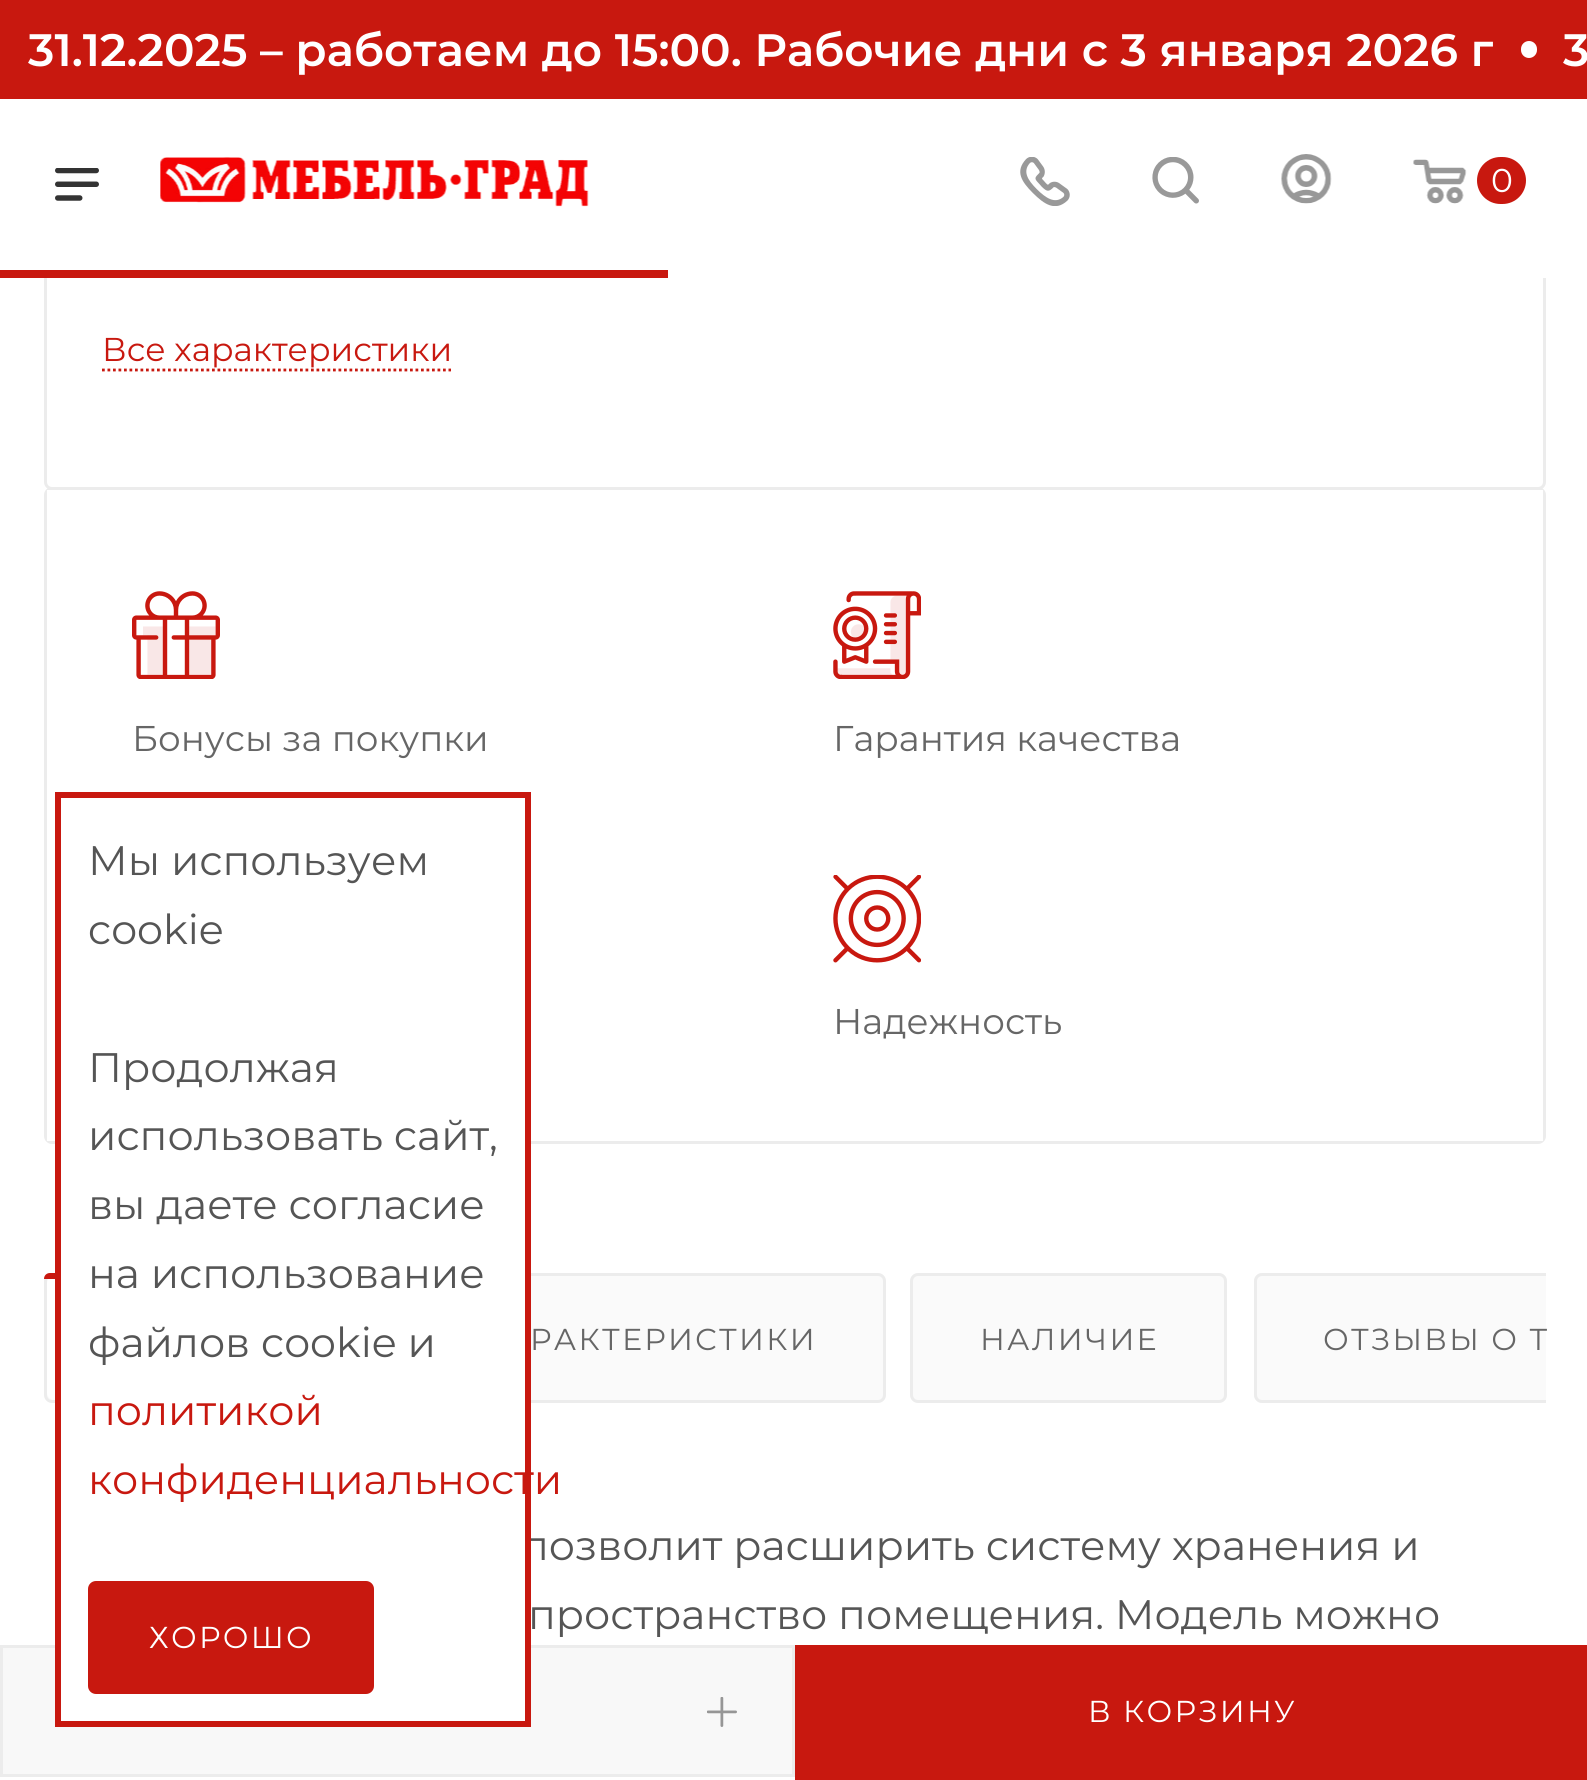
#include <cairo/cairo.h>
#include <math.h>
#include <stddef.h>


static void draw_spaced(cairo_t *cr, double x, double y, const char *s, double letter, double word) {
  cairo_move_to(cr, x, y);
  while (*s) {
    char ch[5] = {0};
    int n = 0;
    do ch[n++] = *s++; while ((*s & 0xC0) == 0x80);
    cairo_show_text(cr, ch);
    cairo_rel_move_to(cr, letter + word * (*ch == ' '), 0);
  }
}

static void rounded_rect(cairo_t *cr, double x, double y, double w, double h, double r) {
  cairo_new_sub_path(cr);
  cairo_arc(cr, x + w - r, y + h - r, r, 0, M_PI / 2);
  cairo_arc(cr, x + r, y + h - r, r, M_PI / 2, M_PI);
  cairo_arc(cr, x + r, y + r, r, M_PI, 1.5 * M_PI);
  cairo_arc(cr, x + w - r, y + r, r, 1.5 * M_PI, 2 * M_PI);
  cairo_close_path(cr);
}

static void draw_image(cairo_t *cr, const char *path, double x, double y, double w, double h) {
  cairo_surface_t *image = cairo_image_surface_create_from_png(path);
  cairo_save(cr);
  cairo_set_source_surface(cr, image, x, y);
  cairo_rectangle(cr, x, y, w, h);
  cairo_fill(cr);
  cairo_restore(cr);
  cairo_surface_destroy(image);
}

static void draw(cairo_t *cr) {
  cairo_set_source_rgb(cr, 1, 1, 1);
  cairo_paint(cr);
  rounded_rect(cr, 45.5, -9.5, 1499, 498, 6.5);
  cairo_set_source_rgb(cr, 236 / 255.0, 236 / 255.0, 236 / 255.0);
  cairo_set_line_width(cr, 3);
  cairo_stroke(cr);
  cairo_set_source_rgb(cr, 200 / 255.0, 24 / 255.0, 15 / 255.0);
  cairo_rectangle(cr, 0, 0, 1587, 99);
  cairo_fill(cr);
  cairo_set_source_rgb(cr, 1, 1, 1);
  rounded_rect(cr, 1521, 41, 16, 17, 8);
  cairo_fill(cr);
  cairo_rectangle(cr, 44, 99, 1502, 171);
  cairo_fill(cr);
  draw_image(cr, "images/1.png", 55, 168, 44, 33);
  draw_image(cr, "images/2.png", 160, 157, 429, 50);
  draw_image(cr, "images/3.png", 1020, 157, 50, 49);
  draw_image(cr, "images/4.png", 1152, 157, 47, 47);
  draw_image(cr, "images/5.png", 1281, 154, 51, 50);
  draw_image(cr, "images/6.png", 1413, 159, 54, 45);
  cairo_set_source_rgb(cr, 200 / 255.0, 24 / 255.0, 15 / 255.0);
  rounded_rect(cr, 1477, 157, 49, 47, 23.5);
  cairo_fill(cr);
  cairo_set_source_rgb(cr, 1, 1, 1);
  cairo_rectangle(cr, 1543, 270, 3, 8);
  cairo_fill(cr);
  cairo_set_source_rgb(cr, 200 / 255.0, 24 / 255.0, 15 / 255.0);
  cairo_rectangle(cr, 0, 270, 668, 8);
  cairo_fill(cr);
  cairo_new_path(cr);
  cairo_move_to(cr, 102, 370);
  cairo_line_to(cr, 451, 370);
  cairo_set_line_width(cr, 2.8);
  cairo_set_dash(cr, (double[]){2.75, 2.75}, 2, 0);
  cairo_stroke(cr);
  cairo_set_source_rgb(cr, 248 / 255.0, 248 / 255.0, 248 / 255.0);
  cairo_rectangle(cr, 1.5, 1646.5, 792, 129);
  cairo_fill_preserve(cr);
  cairo_set_source_rgb(cr, 236 / 255.0, 236 / 255.0, 236 / 255.0);
  cairo_set_line_width(cr, 3);
  cairo_set_dash(cr, NULL, 0, 0);
  cairo_stroke(cr);
  draw_image(cr, "images/7.png", 707, 1697, 30, 30);
  cairo_set_source_rgb(cr, 200 / 255.0, 24 / 255.0, 15 / 255.0);
  cairo_rectangle(cr, 795, 1645, 792, 135);
  cairo_fill(cr);
  rounded_rect(cr, 45.5, 488.5, 1499, 654, 6.5);
  cairo_set_source_rgb(cr, 236 / 255.0, 236 / 255.0, 236 / 255.0);
  cairo_stroke(cr);
  cairo_set_source_rgb(cr, 1, 1, 1);
  cairo_rectangle(cr, 47, 490, 1496, 651);
  cairo_fill(cr);
  draw_image(cr, "images/8.png", 132, 591, 88, 88);
  draw_image(cr, "images/9.png", 833, 591, 88, 88);
  draw_image(cr, "images/10.png", 833, 875, 88, 88);
  cairo_set_source_rgb(cr, 250 / 255.0, 250 / 255.0, 250 / 255.0);
  rounded_rect(cr, 45.5, 1274.5, 341, 127, 6.5);
  cairo_fill_preserve(cr);
  cairo_set_source_rgb(cr, 236 / 255.0, 236 / 255.0, 236 / 255.0);
  cairo_stroke(cr);
  cairo_set_source_rgb(cr, 1, 1, 1);
  rounded_rect(cr, 47, 1276, 338, 124, 8);
  cairo_fill(cr);
  cairo_set_source_rgb(cr, 200 / 255.0, 24 / 255.0, 15 / 255.0);
  cairo_new_path(cr);
  cairo_move_to(cr, 50, 1273);
  cairo_line_to(cr, 382, 1273);
  cairo_curve_to(cr, 385.5, 1273, 388, 1275.5, 388, 1279);
  cairo_line_to(cr, 44, 1279);
  cairo_curve_to(cr, 44, 1275.5, 46.5, 1273, 50, 1273);
  cairo_close_path(cr);
  cairo_fill(cr);
  cairo_set_source_rgb(cr, 250 / 255.0, 250 / 255.0, 250 / 255.0);
  rounded_rect(cr, 416.5, 1274.5, 468, 127, 6.5);
  cairo_fill_preserve(cr);
  cairo_set_source_rgb(cr, 236 / 255.0, 236 / 255.0, 236 / 255.0);
  cairo_stroke(cr);
  cairo_set_source_rgb(cr, 250 / 255.0, 250 / 255.0, 250 / 255.0);
  rounded_rect(cr, 911.5, 1274.5, 314, 127, 6.5);
  cairo_fill_preserve(cr);
  cairo_set_source_rgb(cr, 236 / 255.0, 236 / 255.0, 236 / 255.0);
  cairo_stroke(cr);
  cairo_set_source_rgb(cr, 250 / 255.0, 250 / 255.0, 250 / 255.0);
  cairo_new_path(cr);
  cairo_move_to(cr, 1262, 1273);
  cairo_line_to(cr, 1546, 1273);
  cairo_line_to(cr, 1546, 1403);
  cairo_line_to(cr, 1262, 1403);
  cairo_curve_to(cr, 1257.5, 1403, 1254, 1399.5, 1254, 1395);
  cairo_line_to(cr, 1254, 1281);
  cairo_curve_to(cr, 1254, 1276.5, 1257.5, 1273, 1262, 1273);
  cairo_close_path(cr);
  cairo_fill(cr);
  cairo_save(cr);
  cairo_rectangle(cr, 44, 1273, 1502, 130);
  cairo_clip(cr);
  rounded_rect(cr, 1255.5, 1274.5, 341, 127, 6.5);
  cairo_set_source_rgb(cr, 236 / 255.0, 236 / 255.0, 236 / 255.0);
  cairo_stroke(cr);
  cairo_restore(cr);
  cairo_set_source_rgb(cr, 1, 1, 1);
  cairo_rectangle(cr, 61, 1141, 464, 580);
  cairo_fill(cr);
  cairo_select_font_face(cr, "Montserrat SemiBold", CAIRO_FONT_SLANT_NORMAL, CAIRO_FONT_WEIGHT_NORMAL);
  cairo_set_font_size(cr, 45.4);
  cairo_move_to(cr, 28, 66);
  cairo_show_text(cr, "31.12.2025 – работаем до 15:00. Рабочие дни с 3 января 2026 г");
  cairo_move_to(cr, 1563, 66);
  cairo_show_text(cr, "3");
  cairo_select_font_face(cr, "Montserrat", CAIRO_FONT_SLANT_NORMAL, CAIRO_FONT_WEIGHT_NORMAL);
  cairo_set_font_size(cr, 33);
  cairo_move_to(cr, 1491, 192);
  cairo_show_text(cr, "0");
  cairo_set_source_rgb(cr, 200 / 255.0, 24 / 255.0, 15 / 255.0);
  cairo_move_to(cr, 102, 361);
  cairo_show_text(cr, "Все характеристики");
  cairo_set_font_size(cr, 30.25);
  cairo_set_source_rgb(cr, 1, 1, 1);
  draw_spaced(cr, 1088, 1722, "В КОРЗИНУ", 2.25, 0);
  cairo_set_font_size(cr, 35.75);
  cairo_set_source_rgb(cr, 102 / 255.0, 102 / 255.0, 102 / 255.0);
  cairo_move_to(cr, 132, 751);
  cairo_show_text(cr, "Бонусы за покупки");
  cairo_move_to(cr, 833, 751);
  cairo_show_text(cr, "Гарантия качества");
  cairo_move_to(cr, 833, 1034);
  cairo_show_text(cr, "Надежность");
  cairo_set_font_size(cr, 30.25);
  draw_spaced(cr, 530, 1350, "РАКТЕРИСТИКИ", 2.25, 0);
  draw_spaced(cr, 980, 1350, "НАЛИЧИЕ", 2.25, 0);
  draw_spaced(cr, 1323, 1350, "ОТЗЫВЫ О Т", 2.25, 0);
  cairo_set_font_size(cr, 41.25);
  cairo_set_source_rgb(cr, 85 / 255.0, 85 / 255.0, 85 / 255.0);
  cairo_move_to(cr, 521, 1560);
  cairo_show_text(cr, "позволит расширить систему хранения и");
  cairo_move_to(cr, 528, 1629);
  cairo_show_text(cr, "пространство помещения. Модель можно");
  cairo_rectangle(cr, 58, 795, 470, 929);
  cairo_set_source_rgb(cr, 200 / 255.0, 24 / 255.0, 15 / 255.0);
  cairo_set_line_width(cr, 6);
  cairo_stroke(cr);
  cairo_set_source_rgb(cr, 85 / 255.0, 85 / 255.0, 85 / 255.0);
  cairo_move_to(cr, 88, 875);
  cairo_show_text(cr, "Мы используем");
  cairo_move_to(cr, 88, 944);
  cairo_show_text(cr, "cookie");
  cairo_move_to(cr, 88, 1082);
  cairo_show_text(cr, "Продолжая");
  cairo_move_to(cr, 88, 1150);
  cairo_show_text(cr, "использовать сайт,");
  cairo_move_to(cr, 88, 1219);
  cairo_show_text(cr, "вы даете согласие");
  cairo_move_to(cr, 88, 1288);
  cairo_show_text(cr, "на использование");
  cairo_move_to(cr, 88, 1357);
  cairo_show_text(cr, "файлов cookie и");
  cairo_set_source_rgb(cr, 200 / 255.0, 24 / 255.0, 15 / 255.0);
  cairo_move_to(cr, 88, 1425);
  cairo_show_text(cr, "политикой");
  cairo_move_to(cr, 88, 1494);
  cairo_show_text(cr, "конфиденциальности");
  rounded_rect(cr, 89.5, 1582.5, 283, 110, 6.5);
  cairo_fill_preserve(cr);
  cairo_set_line_width(cr, 3);
  cairo_stroke(cr);
  cairo_set_font_size(cr, 30.25);
  cairo_set_source_rgb(cr, 1, 1, 1);
  draw_spaced(cr, 149, 1648, "ХОРОШО", 2.25, 0);
}

int main(void) {
  cairo_surface_t *surface = cairo_image_surface_create(CAIRO_FORMAT_RGB24, 1587, 1780);
  cairo_t *cr = cairo_create(surface);
  cairo_font_options_t *options = cairo_font_options_create();
  cairo_font_options_set_hint_metrics(options, CAIRO_HINT_METRICS_OFF);
  cairo_font_options_set_hint_style(options, CAIRO_HINT_STYLE_NONE);
  cairo_set_font_options(cr, options);
  cairo_set_miter_limit(cr, 4);
  draw(cr);
  cairo_surface_write_to_png(surface, "out.png");
  cairo_font_options_destroy(options);
  cairo_destroy(cr);
  cairo_surface_destroy(surface);
  return 0;
}
